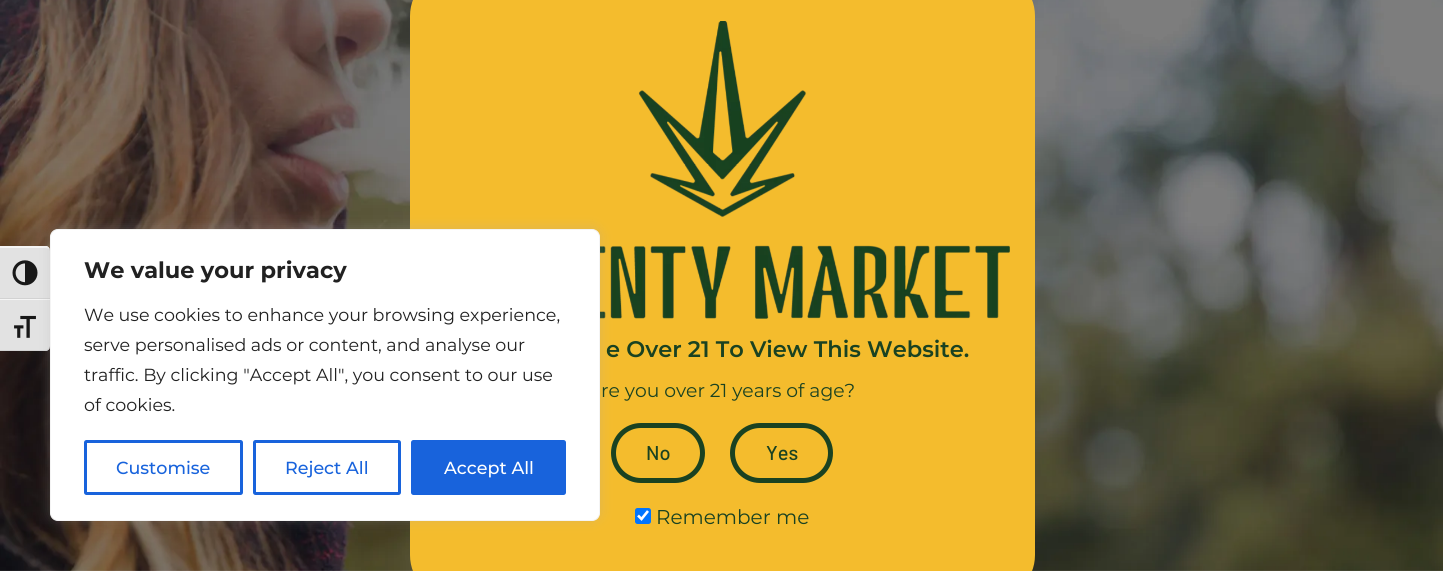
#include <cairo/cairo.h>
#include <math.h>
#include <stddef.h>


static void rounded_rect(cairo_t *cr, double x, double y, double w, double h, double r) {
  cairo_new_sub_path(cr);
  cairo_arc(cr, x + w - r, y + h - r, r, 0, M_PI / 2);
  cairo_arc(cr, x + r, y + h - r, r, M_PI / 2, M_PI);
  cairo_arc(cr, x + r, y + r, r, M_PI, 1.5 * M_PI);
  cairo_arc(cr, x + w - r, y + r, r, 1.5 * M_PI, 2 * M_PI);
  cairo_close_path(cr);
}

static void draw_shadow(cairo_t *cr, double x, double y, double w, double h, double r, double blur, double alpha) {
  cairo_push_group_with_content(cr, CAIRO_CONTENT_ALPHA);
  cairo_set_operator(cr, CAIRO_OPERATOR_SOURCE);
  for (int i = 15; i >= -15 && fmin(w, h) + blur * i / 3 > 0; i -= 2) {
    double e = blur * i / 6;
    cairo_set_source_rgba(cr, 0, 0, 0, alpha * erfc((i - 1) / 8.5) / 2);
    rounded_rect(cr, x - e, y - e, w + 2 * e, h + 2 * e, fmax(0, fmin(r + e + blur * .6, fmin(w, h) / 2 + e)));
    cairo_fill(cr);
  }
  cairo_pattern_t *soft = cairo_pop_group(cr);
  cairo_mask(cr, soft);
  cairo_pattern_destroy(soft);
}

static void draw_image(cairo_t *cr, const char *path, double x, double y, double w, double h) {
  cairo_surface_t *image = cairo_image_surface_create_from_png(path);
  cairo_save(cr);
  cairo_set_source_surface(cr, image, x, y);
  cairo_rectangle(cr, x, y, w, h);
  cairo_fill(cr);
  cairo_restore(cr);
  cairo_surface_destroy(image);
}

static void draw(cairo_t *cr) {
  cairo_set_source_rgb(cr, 1, 1, 1);
  cairo_paint(cr);
  draw_image(cr, "images/3.png", 0, 0, 1443, 571);
  cairo_set_source_rgb(cr, 226 / 255.0, 226 / 255.0, 226 / 255.0);
  cairo_new_path(cr);
  cairo_move_to(cr, 0, 246);
  cairo_line_to(cr, 45, 246);
  cairo_curve_to(cr, 48, 246, 50, 248, 50, 251);
  cairo_line_to(cr, 50, 299);
  cairo_line_to(cr, 0, 299);
  cairo_close_path(cr);
  cairo_fill(cr);
  cairo_set_source_rgb(cr, 245 / 255.0, 245 / 255.0, 245 / 255.0);
  cairo_new_path(cr);
  cairo_move_to(cr, 0, 248);
  cairo_line_to(cr, 45, 248);
  cairo_curve_to(cr, 48, 248, 50, 249, 50, 251);
  cairo_curve_to(cr, 50, 249, 49, 247, 47, 246);
  cairo_line_to(cr, 0, 246);
  cairo_close_path(cr);
  cairo_fill(cr);
  cairo_set_source_rgb(cr, 210 / 255.0, 210 / 255.0, 210 / 255.0);
  cairo_rectangle(cr, 0, 298, 50, 1);
  cairo_fill(cr);
  draw_image(cr, "images/1.png", 12, 260, 26, 26);
  cairo_set_source_rgb(cr, 226 / 255.0, 226 / 255.0, 226 / 255.0);
  cairo_new_path(cr);
  cairo_move_to(cr, 0, 299);
  cairo_line_to(cr, 50, 299);
  cairo_line_to(cr, 50, 346);
  cairo_curve_to(cr, 50, 349, 48, 351, 45, 351);
  cairo_line_to(cr, 0, 351);
  cairo_close_path(cr);
  cairo_fill(cr);
  cairo_set_source_rgb(cr, 245 / 255.0, 245 / 255.0, 245 / 255.0);
  cairo_rectangle(cr, 0, 299, 50, 1);
  cairo_fill(cr);
  cairo_set_source_rgb(cr, 210 / 255.0, 210 / 255.0, 210 / 255.0);
  cairo_new_path(cr);
  cairo_move_to(cr, 0, 350);
  cairo_line_to(cr, 0, 351);
  cairo_line_to(cr, 45, 351);
  cairo_curve_to(cr, 48, 351, 50, 349, 50, 346);
  cairo_curve_to(cr, 50, 348, 48, 350, 45, 350);
  cairo_close_path(cr);
  cairo_fill(cr);
  draw_image(cr, "images/2.png", 14, 315, 22, 23);
  cairo_set_source_rgb(cr, 244 / 255.0, 188 / 255.0, 45 / 255.0);
  rounded_rect(cr, 410, -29, 625, 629, 45);
  cairo_fill(cr);
  draw_image(cr, "images/4.png", 600, 21, 410, 298);
  rounded_rect(cr, 613.5, 425.5, 89, 55, 27.5);
  cairo_set_source_rgb(cr, 26 / 255.0, 66 / 255.0, 33 / 255.0);
  cairo_set_line_width(cr, 5);
  cairo_stroke(cr);
  cairo_set_source_rgb(cr, 172 / 255.0, 171 / 255.0, 171 / 255.0);
  draw_shadow(cr, 50, 228, 550, 292, 8, 6, 0.3);
  cairo_set_source_rgb(cr, 1, 1, 1);
  rounded_rect(cr, 50.5, 229.5, 549, 291, 7.5);
  cairo_fill_preserve(cr);
  cairo_set_source_rgb(cr, 244 / 255.0, 244 / 255.0, 244 / 255.0);
  cairo_set_line_width(cr, 1);
  cairo_stroke(cr);
  rounded_rect(cr, 85.5, 441.5, 156, 52, 1);
  cairo_set_source_rgb(cr, 24 / 255.0, 99 / 255.0, 220 / 255.0);
  cairo_set_line_width(cr, 3);
  cairo_stroke(cr);
  rounded_rect(cr, 254.5, 441.5, 145, 52, 1);
  cairo_stroke(cr);
  rounded_rect(cr, 412.5, 441.5, 152, 52, 1);
  cairo_fill_preserve(cr);
  cairo_stroke(cr);
  rounded_rect(cr, 732.5, 425.5, 98, 55, 27.5);
  cairo_set_source_rgb(cr, 26 / 255.0, 66 / 255.0, 33 / 255.0);
  cairo_set_line_width(cr, 5);
  cairo_stroke(cr);
  cairo_set_source_rgb(cr, 0, 117 / 255.0, 1);
  rounded_rect(cr, 635, 508, 16, 16, 2.5);
  cairo_fill(cr);
  cairo_new_path(cr);
  cairo_move_to(cr, 638, 515.5);
  cairo_line_to(cr, 641.5, 519);
  cairo_line_to(cr, 648, 511);
  cairo_set_source_rgb(cr, 1, 1, 1);
  cairo_set_line_width(cr, 2.6);
  cairo_stroke(cr);
  cairo_select_font_face(cr, "Montserrat", CAIRO_FONT_SLANT_NORMAL, CAIRO_FONT_WEIGHT_BOLD);
  cairo_set_font_size(cr, 22.5);
  cairo_set_source_rgb(cr, 33 / 255.0, 33 / 255.0, 33 / 255.0);
  cairo_move_to(cr, 84, 278);
  cairo_show_text(cr, "We value your privacy");
  cairo_select_font_face(cr, "Montserrat", CAIRO_FONT_SLANT_NORMAL, CAIRO_FONT_WEIGHT_NORMAL);
  cairo_set_font_size(cr, 17.5);
  cairo_move_to(cr, 84, 321);
  cairo_show_text(cr, "We use cookies to enhance your browsing experience,");
  cairo_move_to(cr, 84, 351);
  cairo_show_text(cr, "serve personalised ads or content, and analyse our");
  cairo_move_to(cr, 84, 381);
  cairo_show_text(cr, "traffic. By clicking \"Accept All\", you consent to our use");
  cairo_move_to(cr, 84, 411);
  cairo_show_text(cr, "of cookies.");
  cairo_select_font_face(cr, "Montserrat Medium", CAIRO_FONT_SLANT_NORMAL, CAIRO_FONT_WEIGHT_NORMAL);
  cairo_set_source_rgb(cr, 24 / 255.0, 99 / 255.0, 220 / 255.0);
  cairo_move_to(cr, 116, 474);
  cairo_show_text(cr, "Customise");
  cairo_move_to(cr, 285, 474);
  cairo_show_text(cr, "Reject All");
  cairo_set_source_rgb(cr, 1, 1, 1);
  cairo_move_to(cr, 444, 474);
  cairo_show_text(cr, "Accept All");
  cairo_select_font_face(cr, "Montserrat SemiBold", CAIRO_FONT_SLANT_NORMAL, CAIRO_FONT_WEIGHT_NORMAL);
  cairo_set_font_size(cr, 22.5);
  cairo_set_source_rgb(cr, 26 / 255.0, 66 / 255.0, 33 / 255.0);
  cairo_move_to(cr, 606, 357);
  cairo_show_text(cr, "e Over 21 To View This Website.");
  cairo_select_font_face(cr, "Montserrat", CAIRO_FONT_SLANT_NORMAL, CAIRO_FONT_WEIGHT_NORMAL);
  cairo_set_font_size(cr, 18.75);
  cairo_move_to(cr, 601, 397);
  cairo_show_text(cr, "re you over 21 years of age?");
  cairo_select_font_face(cr, "Barlow Medium", CAIRO_FONT_SLANT_NORMAL, CAIRO_FONT_WEIGHT_NORMAL);
  cairo_set_font_size(cr, 20);
  cairo_move_to(cr, 646, 460);
  cairo_show_text(cr, "No");
  cairo_move_to(cr, 766, 460);
  cairo_show_text(cr, "Yes");
  cairo_select_font_face(cr, "Montserrat", CAIRO_FONT_SLANT_NORMAL, CAIRO_FONT_WEIGHT_NORMAL);
  cairo_move_to(cr, 656, 524);
  cairo_show_text(cr, "Remember me");
}

int main(void) {
  cairo_surface_t *surface = cairo_image_surface_create(CAIRO_FORMAT_RGB24, 1443, 571);
  cairo_t *cr = cairo_create(surface);
  cairo_font_options_t *options = cairo_font_options_create();
  cairo_font_options_set_hint_metrics(options, CAIRO_HINT_METRICS_OFF);
  cairo_font_options_set_hint_style(options, CAIRO_HINT_STYLE_NONE);
  cairo_set_font_options(cr, options);
  cairo_set_miter_limit(cr, 4);
  draw(cr);
  cairo_surface_write_to_png(surface, "out.png");
  cairo_font_options_destroy(options);
  cairo_destroy(cr);
  cairo_surface_destroy(surface);
  return 0;
}
